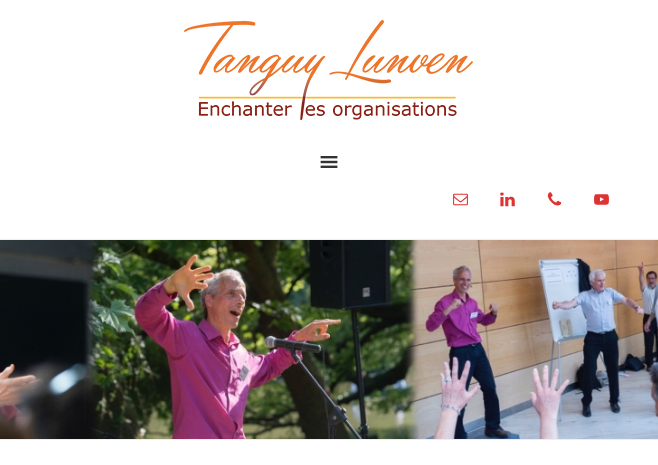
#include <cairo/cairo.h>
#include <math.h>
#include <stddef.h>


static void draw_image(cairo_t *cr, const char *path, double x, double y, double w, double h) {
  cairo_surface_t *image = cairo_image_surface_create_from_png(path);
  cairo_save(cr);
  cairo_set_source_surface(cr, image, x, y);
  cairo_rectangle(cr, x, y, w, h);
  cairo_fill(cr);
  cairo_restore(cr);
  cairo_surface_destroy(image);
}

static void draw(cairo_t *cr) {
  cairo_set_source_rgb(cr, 1, 1, 1);
  cairo_paint(cr);
  cairo_set_source_rgb(cr, 238 / 255.0, 238 / 255.0, 238 / 255.0);
  cairo_rectangle(cr, 0, 239, 658, 1);
  cairo_fill(cr);
  draw_image(cr, "images/1.png", 184, 20, 289, 100);
  draw_image(cr, "images/2.png", 320, 156, 18, 12);
  draw_image(cr, "images/3.png", 453, 193, 15, 13);
  draw_image(cr, "images/4.png", 500, 192, 15, 15);
  draw_image(cr, "images/5.png", 547, 192, 15, 14);
  draw_image(cr, "images/6.png", 594, 194, 15, 11);
  draw_image(cr, "images/7.png", 0, 240, 658, 199);
  cairo_rectangle(cr, 0, 439, 658, 1);
  cairo_fill(cr);
}

int main(void) {
  cairo_surface_t *surface = cairo_image_surface_create(CAIRO_FORMAT_RGB24, 658, 465);
  cairo_t *cr = cairo_create(surface);
  cairo_font_options_t *options = cairo_font_options_create();
  cairo_font_options_set_hint_metrics(options, CAIRO_HINT_METRICS_OFF);
  cairo_font_options_set_hint_style(options, CAIRO_HINT_STYLE_NONE);
  cairo_set_font_options(cr, options);
  cairo_set_miter_limit(cr, 4);
  draw(cr);
  cairo_surface_write_to_png(surface, "out.png");
  cairo_font_options_destroy(options);
  cairo_destroy(cr);
  cairo_surface_destroy(surface);
  return 0;
}
